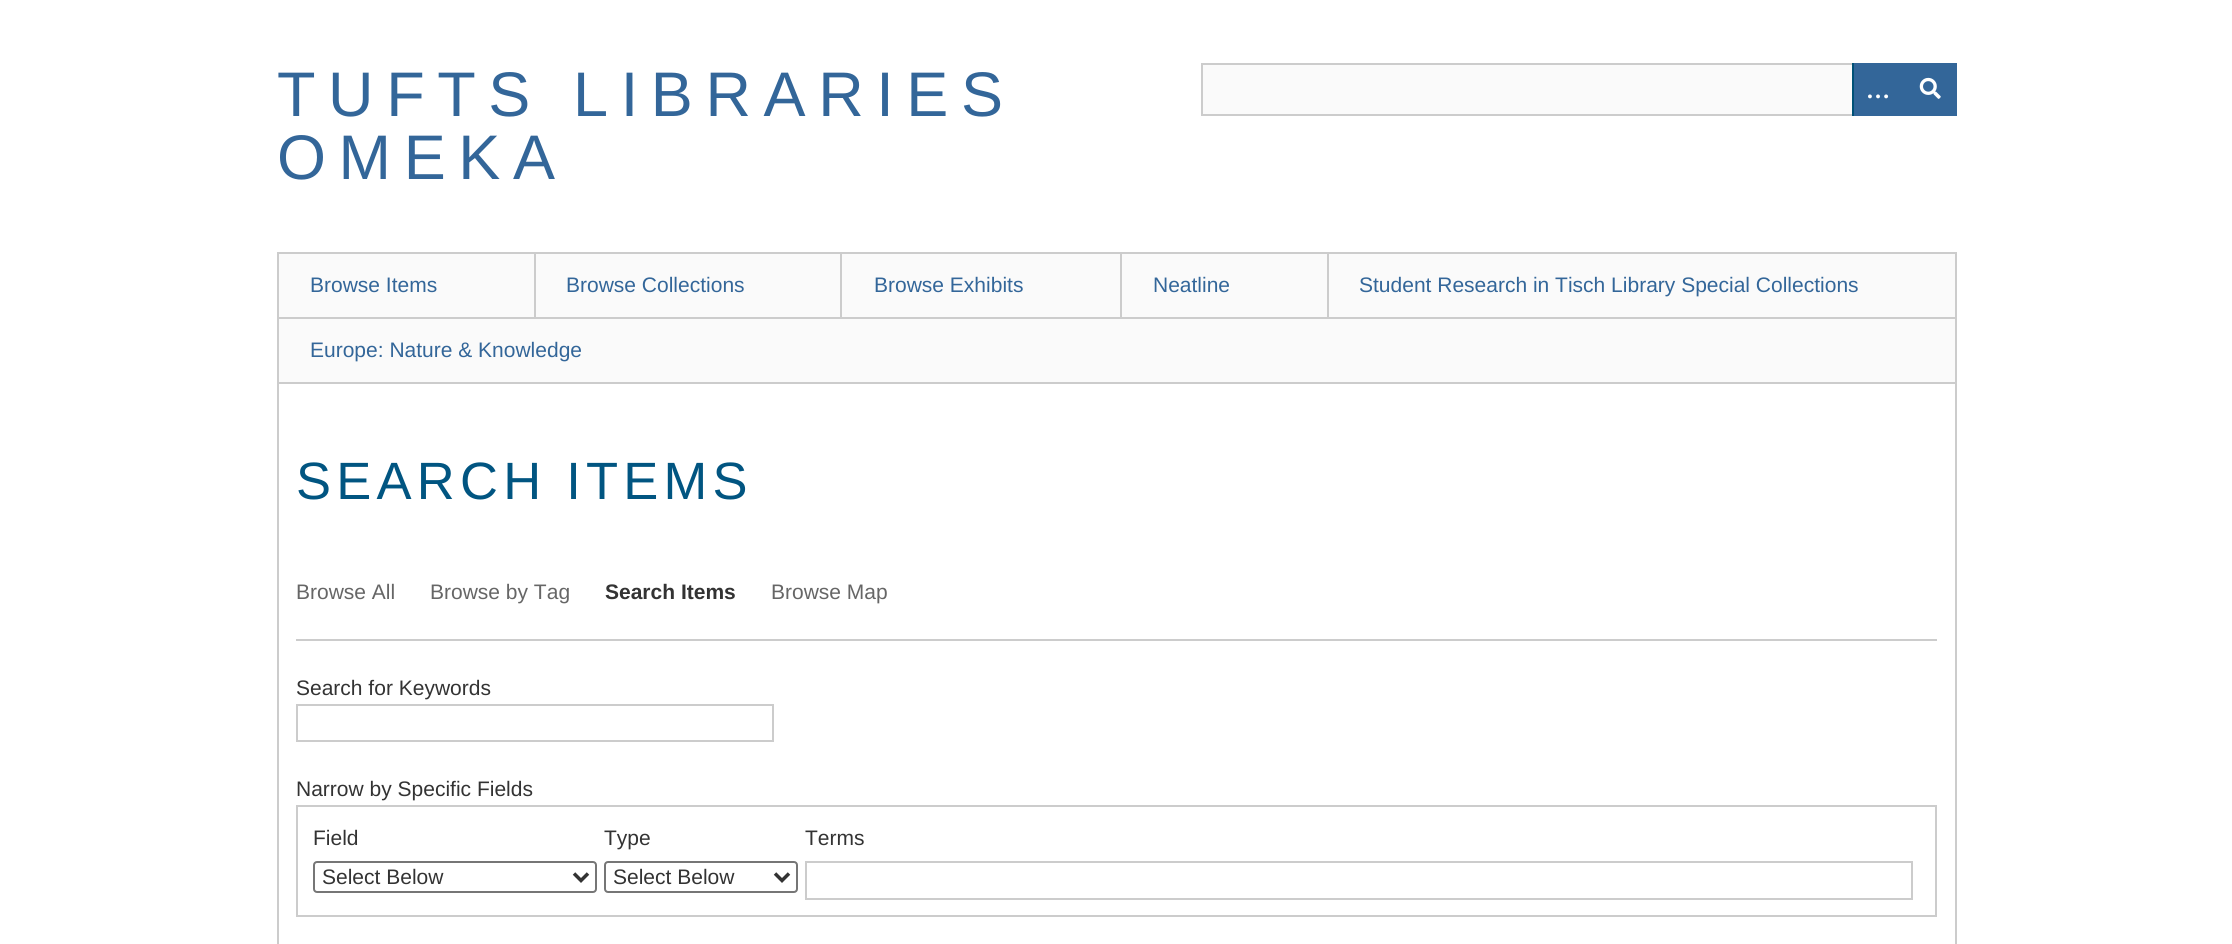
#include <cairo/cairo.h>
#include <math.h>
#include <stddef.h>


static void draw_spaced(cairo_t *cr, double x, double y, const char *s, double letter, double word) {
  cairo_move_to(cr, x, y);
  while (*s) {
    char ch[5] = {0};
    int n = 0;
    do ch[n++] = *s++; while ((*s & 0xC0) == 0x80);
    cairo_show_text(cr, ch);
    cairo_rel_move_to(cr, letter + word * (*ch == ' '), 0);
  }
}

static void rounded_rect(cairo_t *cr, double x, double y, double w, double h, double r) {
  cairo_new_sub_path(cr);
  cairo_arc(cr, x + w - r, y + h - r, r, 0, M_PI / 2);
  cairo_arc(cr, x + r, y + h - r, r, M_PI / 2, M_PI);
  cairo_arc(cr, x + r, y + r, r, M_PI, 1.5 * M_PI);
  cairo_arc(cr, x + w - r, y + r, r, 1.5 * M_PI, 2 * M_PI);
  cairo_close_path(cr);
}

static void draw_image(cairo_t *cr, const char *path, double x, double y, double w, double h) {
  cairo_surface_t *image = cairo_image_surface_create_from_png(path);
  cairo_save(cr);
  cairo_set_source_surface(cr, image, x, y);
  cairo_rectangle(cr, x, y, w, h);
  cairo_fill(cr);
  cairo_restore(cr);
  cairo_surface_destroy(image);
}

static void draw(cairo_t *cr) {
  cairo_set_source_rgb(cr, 1, 1, 1);
  cairo_paint(cr);
  cairo_set_source_rgb(cr, 250 / 255.0, 250 / 255.0, 250 / 255.0);
  cairo_rectangle(cr, 1203, 65, 649, 49);
  cairo_fill(cr);
  cairo_rectangle(cr, 1202, 64, 754, 51);
  cairo_set_source_rgb(cr, 204 / 255.0, 204 / 255.0, 204 / 255.0);
  cairo_stroke(cr);
  cairo_set_source_rgb(cr, 51 / 255.0, 102 / 255.0, 153 / 255.0);
  cairo_rectangle(cr, 1854, 63, 103, 53);
  cairo_fill(cr);
  cairo_set_source_rgb(cr, 0, 81 / 255.0, 119 / 255.0);
  cairo_rectangle(cr, 1852, 63, 2, 53);
  cairo_fill(cr);
  draw_image(cr, "images/1.png", 1919, 77, 22, 22);
  cairo_set_source_rgb(cr, 204 / 255.0, 204 / 255.0, 204 / 255.0);
  cairo_rectangle(cr, 1955, 252, 2, 130);
  cairo_fill(cr);
  cairo_set_source_rgb(cr, 250 / 255.0, 250 / 255.0, 250 / 255.0);
  cairo_rectangle(cr, 279, 254, 255, 63);
  cairo_fill(cr);
  cairo_set_source_rgb(cr, 204 / 255.0, 204 / 255.0, 204 / 255.0);
  cairo_rectangle(cr, 277, 252, 1678, 2);
  cairo_fill(cr);
  cairo_rectangle(cr, 277, 252, 2, 65);
  cairo_fill(cr);
  cairo_set_source_rgb(cr, 250 / 255.0, 250 / 255.0, 250 / 255.0);
  cairo_rectangle(cr, 536, 254, 304, 63);
  cairo_fill(cr);
  cairo_set_source_rgb(cr, 204 / 255.0, 204 / 255.0, 204 / 255.0);
  cairo_rectangle(cr, 534, 252, 2, 65);
  cairo_fill(cr);
  cairo_set_source_rgb(cr, 250 / 255.0, 250 / 255.0, 250 / 255.0);
  cairo_rectangle(cr, 842, 254, 278, 63);
  cairo_fill(cr);
  cairo_set_source_rgb(cr, 204 / 255.0, 204 / 255.0, 204 / 255.0);
  cairo_rectangle(cr, 840, 252, 2, 65);
  cairo_fill(cr);
  cairo_set_source_rgb(cr, 250 / 255.0, 250 / 255.0, 250 / 255.0);
  cairo_rectangle(cr, 1122, 254, 205, 63);
  cairo_fill(cr);
  cairo_set_source_rgb(cr, 204 / 255.0, 204 / 255.0, 204 / 255.0);
  cairo_rectangle(cr, 1120, 252, 2, 65);
  cairo_fill(cr);
  cairo_set_source_rgb(cr, 250 / 255.0, 250 / 255.0, 250 / 255.0);
  cairo_rectangle(cr, 1329, 254, 626, 63);
  cairo_fill(cr);
  cairo_set_source_rgb(cr, 204 / 255.0, 204 / 255.0, 204 / 255.0);
  cairo_rectangle(cr, 1327, 252, 2, 65);
  cairo_fill(cr);
  cairo_set_source_rgb(cr, 250 / 255.0, 250 / 255.0, 250 / 255.0);
  cairo_rectangle(cr, 279, 319, 1676, 63);
  cairo_fill(cr);
  cairo_set_source_rgb(cr, 204 / 255.0, 204 / 255.0, 204 / 255.0);
  cairo_rectangle(cr, 277, 317, 1678, 2);
  cairo_fill(cr);
  cairo_rectangle(cr, 277, 317, 2, 65);
  cairo_fill(cr);
  cairo_rectangle(cr, 278, 383, 1678, 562);
  cairo_stroke(cr);
  cairo_rectangle(cr, 296, 639, 1641, 2);
  cairo_fill(cr);
  cairo_rectangle(cr, 297, 705, 476, 36);
  cairo_stroke(cr);
  cairo_rectangle(cr, 297, 806, 1639, 110);
  cairo_stroke(cr);
  rounded_rect(cr, 314, 862, 282, 30, 3);
  cairo_set_source_rgb(cr, 118 / 255.0, 118 / 255.0, 118 / 255.0);
  cairo_stroke(cr);
  cairo_new_path(cr);
  cairo_move_to(cr, 574, 873.5);
  cairo_line_to(cr, 581, 880.5);
  cairo_line_to(cr, 588, 873.5);
  cairo_set_source_rgb(cr, 51 / 255.0, 51 / 255.0, 51 / 255.0);
  cairo_set_line_width(cr, 3.5);
  cairo_stroke(cr);
  rounded_rect(cr, 605, 862, 192, 30, 3);
  cairo_set_source_rgb(cr, 118 / 255.0, 118 / 255.0, 118 / 255.0);
  cairo_set_line_width(cr, 2);
  cairo_stroke(cr);
  cairo_new_path(cr);
  cairo_move_to(cr, 775, 873.5);
  cairo_line_to(cr, 782, 880.5);
  cairo_line_to(cr, 789, 873.5);
  cairo_set_source_rgb(cr, 51 / 255.0, 51 / 255.0, 51 / 255.0);
  cairo_set_line_width(cr, 3.5);
  cairo_stroke(cr);
  cairo_rectangle(cr, 806, 862, 1106, 37);
  cairo_set_source_rgb(cr, 204 / 255.0, 204 / 255.0, 204 / 255.0);
  cairo_set_line_width(cr, 2);
  cairo_stroke(cr);
  cairo_select_font_face(cr, "Liberation Sans", CAIRO_FONT_SLANT_NORMAL, CAIRO_FONT_WEIGHT_NORMAL);
  cairo_set_font_size(cr, 63);
  cairo_set_source_rgb(cr, 51 / 255.0, 102 / 255.0, 153 / 255.0);
  draw_spaced(cr, 277, 116, "TUFTS LIBRARIES", 12.6, 0);
  draw_spaced(cr, 277, 179, "OMEKA", 12.6, 0);
  cairo_select_font_face(cr, "Liberation Serif", CAIRO_FONT_SLANT_NORMAL, CAIRO_FONT_WEIGHT_BOLD);
  cairo_set_font_size(cr, 24);
  cairo_set_source_rgb(cr, 1, 1, 1);
  cairo_move_to(cr, 1866, 98);
  cairo_show_text(cr, "…");
  cairo_select_font_face(cr, "Liberation Sans", CAIRO_FONT_SLANT_NORMAL, CAIRO_FONT_WEIGHT_NORMAL);
  cairo_set_font_size(cr, 21);
  cairo_set_source_rgb(cr, 51 / 255.0, 102 / 255.0, 153 / 255.0);
  cairo_move_to(cr, 310, 292);
  cairo_show_text(cr, "Browse Items");
  cairo_move_to(cr, 566, 292);
  cairo_show_text(cr, "Browse Collections");
  cairo_move_to(cr, 874, 292);
  cairo_show_text(cr, "Browse Exhibits");
  cairo_move_to(cr, 1153, 292);
  cairo_show_text(cr, "Neatline");
  cairo_move_to(cr, 1359, 292);
  cairo_show_text(cr, "Student Research in Tisch Library Special Collections");
  cairo_move_to(cr, 310, 357);
  cairo_show_text(cr, "Europe: Nature & Knowledge");
  cairo_set_font_size(cr, 52.5);
  cairo_set_source_rgb(cr, 1 / 255.0, 85 / 255.0, 129 / 255.0);
  draw_spaced(cr, 296, 499, "SEARCH ITEMS", 5.25, 0);
  cairo_set_font_size(cr, 21);
  cairo_set_source_rgb(cr, 102 / 255.0, 102 / 255.0, 102 / 255.0);
  cairo_move_to(cr, 296, 599);
  cairo_show_text(cr, "Browse All");
  cairo_move_to(cr, 430, 599);
  cairo_show_text(cr, "Browse by Tag");
  cairo_select_font_face(cr, "Liberation Sans", CAIRO_FONT_SLANT_NORMAL, CAIRO_FONT_WEIGHT_BOLD);
  cairo_set_source_rgb(cr, 51 / 255.0, 51 / 255.0, 51 / 255.0);
  cairo_move_to(cr, 605, 599);
  cairo_show_text(cr, "Search Items");
  cairo_select_font_face(cr, "Liberation Sans", CAIRO_FONT_SLANT_NORMAL, CAIRO_FONT_WEIGHT_NORMAL);
  cairo_set_source_rgb(cr, 102 / 255.0, 102 / 255.0, 102 / 255.0);
  cairo_move_to(cr, 771, 599);
  cairo_show_text(cr, "Browse Map");
  cairo_set_source_rgb(cr, 51 / 255.0, 51 / 255.0, 51 / 255.0);
  cairo_move_to(cr, 296, 695);
  cairo_show_text(cr, "Search for Keywords");
  cairo_move_to(cr, 296, 796);
  cairo_show_text(cr, "Narrow by Specific Fields");
  cairo_move_to(cr, 313, 845);
  cairo_show_text(cr, "Field");
  cairo_move_to(cr, 322, 884);
  cairo_show_text(cr, "Select Below");
  cairo_move_to(cr, 604, 845);
  cairo_show_text(cr, "Type");
  cairo_move_to(cr, 613, 884);
  cairo_show_text(cr, "Select Below");
  cairo_move_to(cr, 805, 845);
  cairo_show_text(cr, "Terms");
}

int main(void) {
  cairo_surface_t *surface = cairo_image_surface_create(CAIRO_FORMAT_RGB24, 2232, 944);
  cairo_t *cr = cairo_create(surface);
  cairo_font_options_t *options = cairo_font_options_create();
  cairo_font_options_set_hint_metrics(options, CAIRO_HINT_METRICS_OFF);
  cairo_font_options_set_hint_style(options, CAIRO_HINT_STYLE_NONE);
  cairo_set_font_options(cr, options);
  cairo_set_miter_limit(cr, 4);
  draw(cr);
  cairo_surface_write_to_png(surface, "out.png");
  cairo_font_options_destroy(options);
  cairo_destroy(cr);
  cairo_surface_destroy(surface);
  return 0;
}
